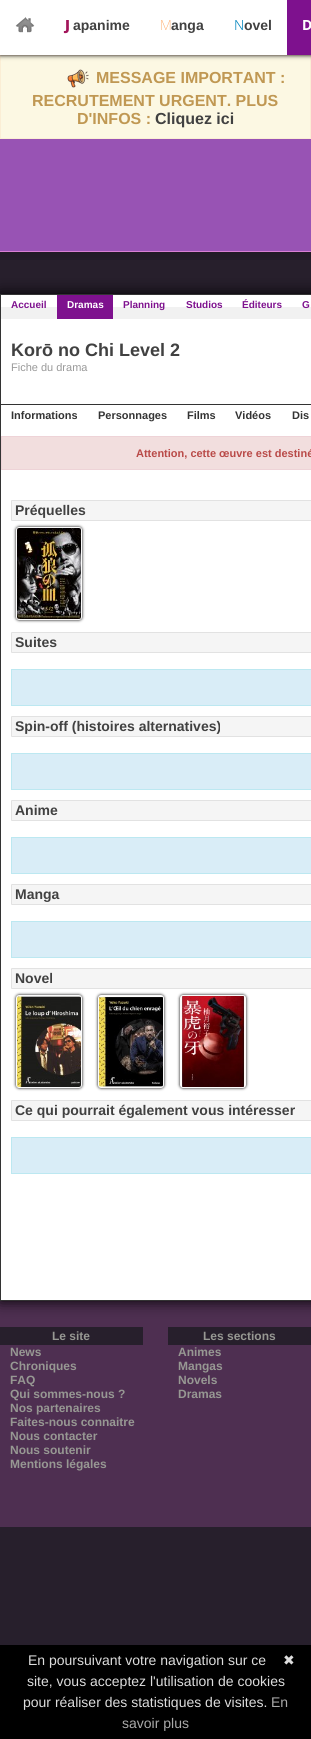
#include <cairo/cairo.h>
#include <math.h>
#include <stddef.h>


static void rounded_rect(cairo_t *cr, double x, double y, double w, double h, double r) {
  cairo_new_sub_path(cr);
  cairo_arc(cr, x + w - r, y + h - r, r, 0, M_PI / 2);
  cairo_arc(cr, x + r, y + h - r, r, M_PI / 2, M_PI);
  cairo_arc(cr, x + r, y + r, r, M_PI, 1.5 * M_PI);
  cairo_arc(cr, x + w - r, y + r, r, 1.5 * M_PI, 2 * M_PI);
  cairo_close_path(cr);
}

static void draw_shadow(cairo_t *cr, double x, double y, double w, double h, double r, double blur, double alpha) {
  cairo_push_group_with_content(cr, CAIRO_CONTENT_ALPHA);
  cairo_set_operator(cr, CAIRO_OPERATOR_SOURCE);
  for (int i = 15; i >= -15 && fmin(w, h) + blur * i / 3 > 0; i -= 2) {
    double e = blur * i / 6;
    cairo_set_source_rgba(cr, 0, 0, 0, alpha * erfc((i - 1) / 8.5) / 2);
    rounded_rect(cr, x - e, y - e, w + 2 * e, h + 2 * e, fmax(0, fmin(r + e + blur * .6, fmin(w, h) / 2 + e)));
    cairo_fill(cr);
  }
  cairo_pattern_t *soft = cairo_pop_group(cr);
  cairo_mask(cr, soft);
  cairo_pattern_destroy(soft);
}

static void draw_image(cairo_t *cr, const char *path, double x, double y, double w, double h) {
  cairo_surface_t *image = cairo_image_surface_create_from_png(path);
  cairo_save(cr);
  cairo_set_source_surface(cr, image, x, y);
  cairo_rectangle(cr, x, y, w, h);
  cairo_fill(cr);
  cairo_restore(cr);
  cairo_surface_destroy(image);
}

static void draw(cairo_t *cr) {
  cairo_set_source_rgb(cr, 39 / 255.0, 31 / 255.0, 44 / 255.0);
  cairo_paint(cr);
  draw_image(cr, "images/1.png", 0, 139, 311, 121);
  cairo_set_source_rgb(cr, 252 / 255.0, 248 / 255.0, 227 / 255.0);
  cairo_rectangle(cr, 0.5, 55.5, 310, 83);
  cairo_fill_preserve(cr);
  cairo_set_source_rgb(cr, 251 / 255.0, 238 / 255.0, 213 / 255.0);
  cairo_set_line_width(cr, 1);
  cairo_stroke(cr);
  cairo_set_source_rgb(cr, 0, 0, 0);
  draw_shadow(cr, 0, 0, 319, 55, 0, 2.5, 1);
  cairo_set_source_rgb(cr, 1, 1, 1);
  cairo_rectangle(cr, 0, 0, 287, 55);
  cairo_fill(cr);
  draw_image(cr, "images/2.png", 15, 17, 20, 16);
  cairo_set_source_rgb(cr, 126 / 255.0, 17 / 255.0, 142 / 255.0);
  cairo_rectangle(cr, 287, 0, 24, 55);
  cairo_fill(cr);
  draw_image(cr, "images/3.png", 67, 69, 22, 19);
  cairo_set_source_rgb(cr, 78 / 255.0, 47 / 255.0, 81 / 255.0);
  cairo_rectangle(cr, 0, 1301, 311, 226);
  cairo_fill(cr);
  cairo_set_source_rgb(cr, 0, 0, 0);
  draw_shadow(cr, 0, 294, 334, 1007, 0, 7.5, 1);
  cairo_set_source_rgb(cr, 1, 1, 1);
  cairo_rectangle(cr, 0.5, 294.5, 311, 1006);
  cairo_fill_preserve(cr);
  cairo_set_source_rgb(cr, 51 / 255.0, 51 / 255.0, 51 / 255.0);
  cairo_stroke(cr);
  cairo_set_source_rgb(cr, 241 / 255.0, 241 / 255.0, 241 / 255.0);
  cairo_rectangle(cr, 1, 307, 310, 12);
  cairo_fill(cr);
  cairo_set_source_rgb(cr, 126 / 255.0, 17 / 255.0, 142 / 255.0);
  cairo_rectangle(cr, 57, 295, 56, 24);
  cairo_fill(cr);
  cairo_set_source_rgb(cr, 51 / 255.0, 51 / 255.0, 51 / 255.0);
  cairo_rectangle(cr, 1, 404, 310, 1);
  cairo_fill(cr);
  cairo_set_source_rgb(cr, 242 / 255.0, 222 / 255.0, 222 / 255.0);
  cairo_rectangle(cr, 1.5, 436.5, 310, 33);
  cairo_fill_preserve(cr);
  cairo_set_source_rgb(cr, 238 / 255.0, 211 / 255.0, 215 / 255.0);
  cairo_stroke(cr);
  cairo_set_source_rgb(cr, 245 / 255.0, 245 / 255.0, 245 / 255.0);
  rounded_rect(cr, 11.5, 500.5, 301, 20, 0.5);
  cairo_fill_preserve(cr);
  cairo_set_source_rgb(cr, 226 / 255.0, 226 / 255.0, 226 / 255.0);
  cairo_stroke(cr);
  cairo_set_source_rgb(cr, 0, 0, 0);
  draw_shadow(cr, 16, 527, 66, 93, 3, 1.5, 1);
  cairo_set_source_rgb(cr, 252 / 255.0, 252 / 255.0, 252 / 255.0);
  rounded_rect(cr, 16, 527, 66, 93, 3);
  cairo_fill(cr);
  draw_image(cr, "images/4.png", 17, 528, 64, 91);
  cairo_set_source_rgb(cr, 245 / 255.0, 245 / 255.0, 245 / 255.0);
  rounded_rect(cr, 11.5, 632.5, 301, 20, 0.5);
  cairo_fill_preserve(cr);
  cairo_set_source_rgb(cr, 226 / 255.0, 226 / 255.0, 226 / 255.0);
  cairo_stroke(cr);
  cairo_set_source_rgb(cr, 217 / 255.0, 237 / 255.0, 247 / 255.0);
  cairo_rectangle(cr, 11.5, 669.5, 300, 36);
  cairo_fill_preserve(cr);
  cairo_set_source_rgb(cr, 188 / 255.0, 232 / 255.0, 241 / 255.0);
  cairo_stroke(cr);
  cairo_set_source_rgb(cr, 245 / 255.0, 245 / 255.0, 245 / 255.0);
  rounded_rect(cr, 11.5, 716.5, 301, 20, 0.5);
  cairo_fill_preserve(cr);
  cairo_set_source_rgb(cr, 226 / 255.0, 226 / 255.0, 226 / 255.0);
  cairo_stroke(cr);
  cairo_set_source_rgb(cr, 217 / 255.0, 237 / 255.0, 247 / 255.0);
  cairo_rectangle(cr, 11.5, 753.5, 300, 36);
  cairo_fill_preserve(cr);
  cairo_set_source_rgb(cr, 188 / 255.0, 232 / 255.0, 241 / 255.0);
  cairo_stroke(cr);
  cairo_set_source_rgb(cr, 245 / 255.0, 245 / 255.0, 245 / 255.0);
  rounded_rect(cr, 11.5, 800.5, 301, 20, 0.5);
  cairo_fill_preserve(cr);
  cairo_set_source_rgb(cr, 226 / 255.0, 226 / 255.0, 226 / 255.0);
  cairo_stroke(cr);
  cairo_set_source_rgb(cr, 217 / 255.0, 237 / 255.0, 247 / 255.0);
  cairo_rectangle(cr, 11.5, 837.5, 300, 36);
  cairo_fill_preserve(cr);
  cairo_set_source_rgb(cr, 188 / 255.0, 232 / 255.0, 241 / 255.0);
  cairo_stroke(cr);
  cairo_set_source_rgb(cr, 245 / 255.0, 245 / 255.0, 245 / 255.0);
  rounded_rect(cr, 11.5, 884.5, 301, 20, 0.5);
  cairo_fill_preserve(cr);
  cairo_set_source_rgb(cr, 226 / 255.0, 226 / 255.0, 226 / 255.0);
  cairo_stroke(cr);
  cairo_set_source_rgb(cr, 217 / 255.0, 237 / 255.0, 247 / 255.0);
  cairo_rectangle(cr, 11.5, 921.5, 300, 36);
  cairo_fill_preserve(cr);
  cairo_set_source_rgb(cr, 188 / 255.0, 232 / 255.0, 241 / 255.0);
  cairo_stroke(cr);
  cairo_set_source_rgb(cr, 245 / 255.0, 245 / 255.0, 245 / 255.0);
  rounded_rect(cr, 11.5, 968.5, 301, 20, 0.5);
  cairo_fill_preserve(cr);
  cairo_set_source_rgb(cr, 226 / 255.0, 226 / 255.0, 226 / 255.0);
  cairo_stroke(cr);
  cairo_set_source_rgb(cr, 0, 0, 0);
  draw_shadow(cr, 16, 995, 66, 93, 3, 1.5, 1);
  draw_shadow(cr, 98, 995, 66, 93, 3, 1.5, 1);
  draw_shadow(cr, 180, 995, 66, 93, 3, 1.5, 1);
  cairo_set_source_rgb(cr, 252 / 255.0, 252 / 255.0, 252 / 255.0);
  rounded_rect(cr, 16, 995, 66, 93, 3);
  cairo_fill(cr);
  rounded_rect(cr, 98, 995, 66, 93, 3);
  cairo_fill(cr);
  rounded_rect(cr, 180, 995, 66, 93, 3);
  cairo_fill(cr);
  draw_image(cr, "images/5.png", 17, 996, 64, 91);
  draw_image(cr, "images/6.png", 99, 996, 64, 91);
  draw_image(cr, "images/7.png", 181, 996, 64, 91);
  cairo_set_source_rgb(cr, 245 / 255.0, 245 / 255.0, 245 / 255.0);
  rounded_rect(cr, 11.5, 1100.5, 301, 20, 0.5);
  cairo_fill_preserve(cr);
  cairo_set_source_rgb(cr, 226 / 255.0, 226 / 255.0, 226 / 255.0);
  cairo_stroke(cr);
  cairo_set_source_rgb(cr, 217 / 255.0, 237 / 255.0, 247 / 255.0);
  cairo_rectangle(cr, 11.5, 1137.5, 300, 36);
  cairo_fill_preserve(cr);
  cairo_set_source_rgb(cr, 188 / 255.0, 232 / 255.0, 241 / 255.0);
  cairo_stroke(cr);
  cairo_set_source_rgb(cr, 39 / 255.0, 31 / 255.0, 44 / 255.0);
  cairo_rectangle(cr, 0, 1327, 143, 18);
  cairo_fill(cr);
  cairo_rectangle(cr, 168, 1327, 143, 18);
  cairo_fill(cr);
  cairo_set_source_rgb(cr, 0, 0, 0);
  cairo_rectangle(cr, 0, 1645, 311, 94);
  cairo_fill(cr);
  cairo_select_font_face(cr, "Noto Sans Black", CAIRO_FONT_SLANT_NORMAL, CAIRO_FONT_WEIGHT_NORMAL);
  cairo_set_font_size(cr, 14);
  cairo_set_source_rgb(cr, 162 / 255.0, 21 / 255.0, 90 / 255.0);
  cairo_move_to(cr, 65, 30);
  cairo_show_text(cr, "J");
  cairo_select_font_face(cr, "Liberation Sans", CAIRO_FONT_SLANT_NORMAL, CAIRO_FONT_WEIGHT_BOLD);
  cairo_set_source_rgb(cr, 65 / 255.0, 65 / 255.0, 65 / 255.0);
  cairo_move_to(cr, 73, 30);
  cairo_show_text(cr, "apanime");
  cairo_select_font_face(cr, "Noto Sans Thin", CAIRO_FONT_SLANT_NORMAL, CAIRO_FONT_WEIGHT_NORMAL);
  cairo_set_source_rgb(cr, 1, 143 / 255.0, 57 / 255.0);
  cairo_move_to(cr, 160, 30);
  cairo_show_text(cr, "M");
  cairo_select_font_face(cr, "Liberation Sans", CAIRO_FONT_SLANT_NORMAL, CAIRO_FONT_WEIGHT_BOLD);
  cairo_set_source_rgb(cr, 65 / 255.0, 65 / 255.0, 65 / 255.0);
  cairo_move_to(cr, 171, 30);
  cairo_show_text(cr, "anga");
  cairo_select_font_face(cr, "Noto Sans Light", CAIRO_FONT_SLANT_NORMAL, CAIRO_FONT_WEIGHT_NORMAL);
  cairo_set_source_rgb(cr, 2 / 255.0, 133 / 255.0, 189 / 255.0);
  cairo_move_to(cr, 234, 30);
  cairo_show_text(cr, "N");
  cairo_select_font_face(cr, "Liberation Sans", CAIRO_FONT_SLANT_NORMAL, CAIRO_FONT_WEIGHT_BOLD);
  cairo_set_source_rgb(cr, 65 / 255.0, 65 / 255.0, 65 / 255.0);
  cairo_move_to(cr, 244, 30);
  cairo_show_text(cr, "ovel");
  cairo_select_font_face(cr, "Noto Sans", CAIRO_FONT_SLANT_NORMAL, CAIRO_FONT_WEIGHT_BOLD);
  cairo_set_source_rgb(cr, 1, 1, 1);
  cairo_move_to(cr, 302, 30);
  cairo_show_text(cr, "D");
  cairo_select_font_face(cr, "Liberation Sans", CAIRO_FONT_SLANT_NORMAL, CAIRO_FONT_WEIGHT_BOLD);
  cairo_set_font_size(cr, 16);
  cairo_set_source_rgb(cr, 192 / 255.0, 152 / 255.0, 83 / 255.0);
  cairo_move_to(cr, 96, 83);
  cairo_show_text(cr, "MESSAGE IMPORTANT :");
  cairo_move_to(cr, 32, 106);
  cairo_show_text(cr, "RECRUTEMENT URGENT. PLUS");
  cairo_move_to(cr, 77, 124);
  cairo_show_text(cr, "D'INFOS :");
  cairo_set_source_rgb(cr, 65 / 255.0, 65 / 255.0, 65 / 255.0);
  cairo_move_to(cr, 155, 124);
  cairo_show_text(cr, "Cliquez ici");
  cairo_set_font_size(cr, 10);
  cairo_set_source_rgb(cr, 126 / 255.0, 17 / 255.0, 142 / 255.0);
  cairo_move_to(cr, 11, 308);
  cairo_show_text(cr, "Accueil");
  cairo_set_source_rgb(cr, 1, 1, 1);
  cairo_move_to(cr, 67, 308);
  cairo_show_text(cr, "Dramas");
  cairo_set_source_rgb(cr, 126 / 255.0, 17 / 255.0, 142 / 255.0);
  cairo_move_to(cr, 123, 308);
  cairo_show_text(cr, "Planning");
  cairo_move_to(cr, 186, 308);
  cairo_show_text(cr, "Studios");
  cairo_move_to(cr, 242, 308);
  cairo_show_text(cr, "Éditeurs");
  cairo_move_to(cr, 302, 308);
  cairo_show_text(cr, "G");
  cairo_set_font_size(cr, 18);
  cairo_set_source_rgb(cr, 65 / 255.0, 65 / 255.0, 65 / 255.0);
  cairo_move_to(cr, 11, 356);
  cairo_show_text(cr, "Korō no Chi Level 2");
  cairo_select_font_face(cr, "Liberation Sans", CAIRO_FONT_SLANT_NORMAL, CAIRO_FONT_WEIGHT_NORMAL);
  cairo_set_font_size(cr, 11);
  cairo_set_source_rgb(cr, 153 / 255.0, 153 / 255.0, 153 / 255.0);
  cairo_move_to(cr, 11, 371);
  cairo_show_text(cr, "Fiche du drama");
  cairo_select_font_face(cr, "Liberation Sans", CAIRO_FONT_SLANT_NORMAL, CAIRO_FONT_WEIGHT_BOLD);
  cairo_set_source_rgb(cr, 51 / 255.0, 51 / 255.0, 51 / 255.0);
  cairo_move_to(cr, 11, 419);
  cairo_show_text(cr, "Informations");
  cairo_move_to(cr, 98, 419);
  cairo_show_text(cr, "Personnages");
  cairo_move_to(cr, 187, 419);
  cairo_show_text(cr, "Films");
  cairo_move_to(cr, 235, 419);
  cairo_show_text(cr, "Vidéos");
  cairo_move_to(cr, 292, 419);
  cairo_show_text(cr, "Dis");
  cairo_set_source_rgb(cr, 185 / 255.0, 74 / 255.0, 72 / 255.0);
  cairo_move_to(cr, 136, 457);
  cairo_show_text(cr, "Attention, cette œuvre est destiné");
  cairo_set_font_size(cr, 14);
  cairo_set_source_rgb(cr, 65 / 255.0, 65 / 255.0, 65 / 255.0);
  cairo_move_to(cr, 15, 515);
  cairo_show_text(cr, "Préquelles");
  cairo_move_to(cr, 15, 647);
  cairo_show_text(cr, "Suites");
  cairo_move_to(cr, 15, 731);
  cairo_show_text(cr, "Spin-off (histoires alternatives)");
  cairo_move_to(cr, 15, 815);
  cairo_show_text(cr, "Anime");
  cairo_move_to(cr, 15, 899);
  cairo_show_text(cr, "Manga");
  cairo_move_to(cr, 15, 983);
  cairo_show_text(cr, "Novel");
  cairo_move_to(cr, 15, 1115);
  cairo_show_text(cr, "Ce qui pourrait également vous intéresser");
  cairo_set_font_size(cr, 12);
  cairo_set_source_rgb(cr, 151 / 255.0, 152 / 255.0, 147 / 255.0);
  cairo_move_to(cr, 52, 1340);
  cairo_show_text(cr, "Le site");
  cairo_move_to(cr, 10, 1356);
  cairo_show_text(cr, "News");
  cairo_move_to(cr, 10, 1370);
  cairo_show_text(cr, "Chroniques");
  cairo_move_to(cr, 10, 1384);
  cairo_show_text(cr, "FAQ");
  cairo_move_to(cr, 10, 1398);
  cairo_show_text(cr, "Qui sommes-nous ?");
  cairo_move_to(cr, 10, 1412);
  cairo_show_text(cr, "Nos partenaires");
  cairo_move_to(cr, 10, 1426);
  cairo_show_text(cr, "Faites-nous connaitre");
  cairo_move_to(cr, 10, 1440);
  cairo_show_text(cr, "Nous contacter");
  cairo_move_to(cr, 10, 1454);
  cairo_show_text(cr, "Nous soutenir");
  cairo_move_to(cr, 10, 1468);
  cairo_show_text(cr, "Mentions légales");
  cairo_move_to(cr, 203, 1340);
  cairo_show_text(cr, "Les sections");
  cairo_move_to(cr, 178, 1356);
  cairo_show_text(cr, "Animes");
  cairo_move_to(cr, 178, 1370);
  cairo_show_text(cr, "Mangas");
  cairo_move_to(cr, 178, 1384);
  cairo_show_text(cr, "Novels");
  cairo_move_to(cr, 178, 1398);
  cairo_show_text(cr, "Dramas");
  cairo_select_font_face(cr, "Liberation Sans", CAIRO_FONT_SLANT_NORMAL, CAIRO_FONT_WEIGHT_NORMAL);
  cairo_set_font_size(cr, 14);
  cairo_set_source_rgb(cr, 221 / 255.0, 221 / 255.0, 221 / 255.0);
  cairo_move_to(cr, 28, 1665);
  cairo_show_text(cr, "En poursuivant votre navigation sur ce");
  cairo_select_font_face(cr, "DejaVu Sans", CAIRO_FONT_SLANT_NORMAL, CAIRO_FONT_WEIGHT_NORMAL);
  cairo_move_to(cr, 283, 1665);
  cairo_show_text(cr, "✖");
  cairo_select_font_face(cr, "Liberation Sans", CAIRO_FONT_SLANT_NORMAL, CAIRO_FONT_WEIGHT_NORMAL);
  cairo_move_to(cr, 27, 1686);
  cairo_show_text(cr, "site, vous acceptez l'utilisation de cookies");
  cairo_move_to(cr, 23, 1707);
  cairo_show_text(cr, "pour réaliser des statistiques de visites.");
  cairo_set_source_rgb(cr, 170 / 255.0, 170 / 255.0, 170 / 255.0);
  cairo_move_to(cr, 271, 1707);
  cairo_show_text(cr, "En");
  cairo_move_to(cr, 122, 1728);
  cairo_show_text(cr, "savoir plus");
}

int main(void) {
  cairo_surface_t *surface = cairo_image_surface_create(CAIRO_FORMAT_RGB24, 311, 1739);
  cairo_t *cr = cairo_create(surface);
  cairo_font_options_t *options = cairo_font_options_create();
  cairo_font_options_set_hint_metrics(options, CAIRO_HINT_METRICS_OFF);
  cairo_font_options_set_hint_style(options, CAIRO_HINT_STYLE_NONE);
  cairo_set_font_options(cr, options);
  cairo_set_miter_limit(cr, 4);
  draw(cr);
  cairo_surface_write_to_png(surface, "out.png");
  cairo_font_options_destroy(options);
  cairo_destroy(cr);
  cairo_surface_destroy(surface);
  return 0;
}
